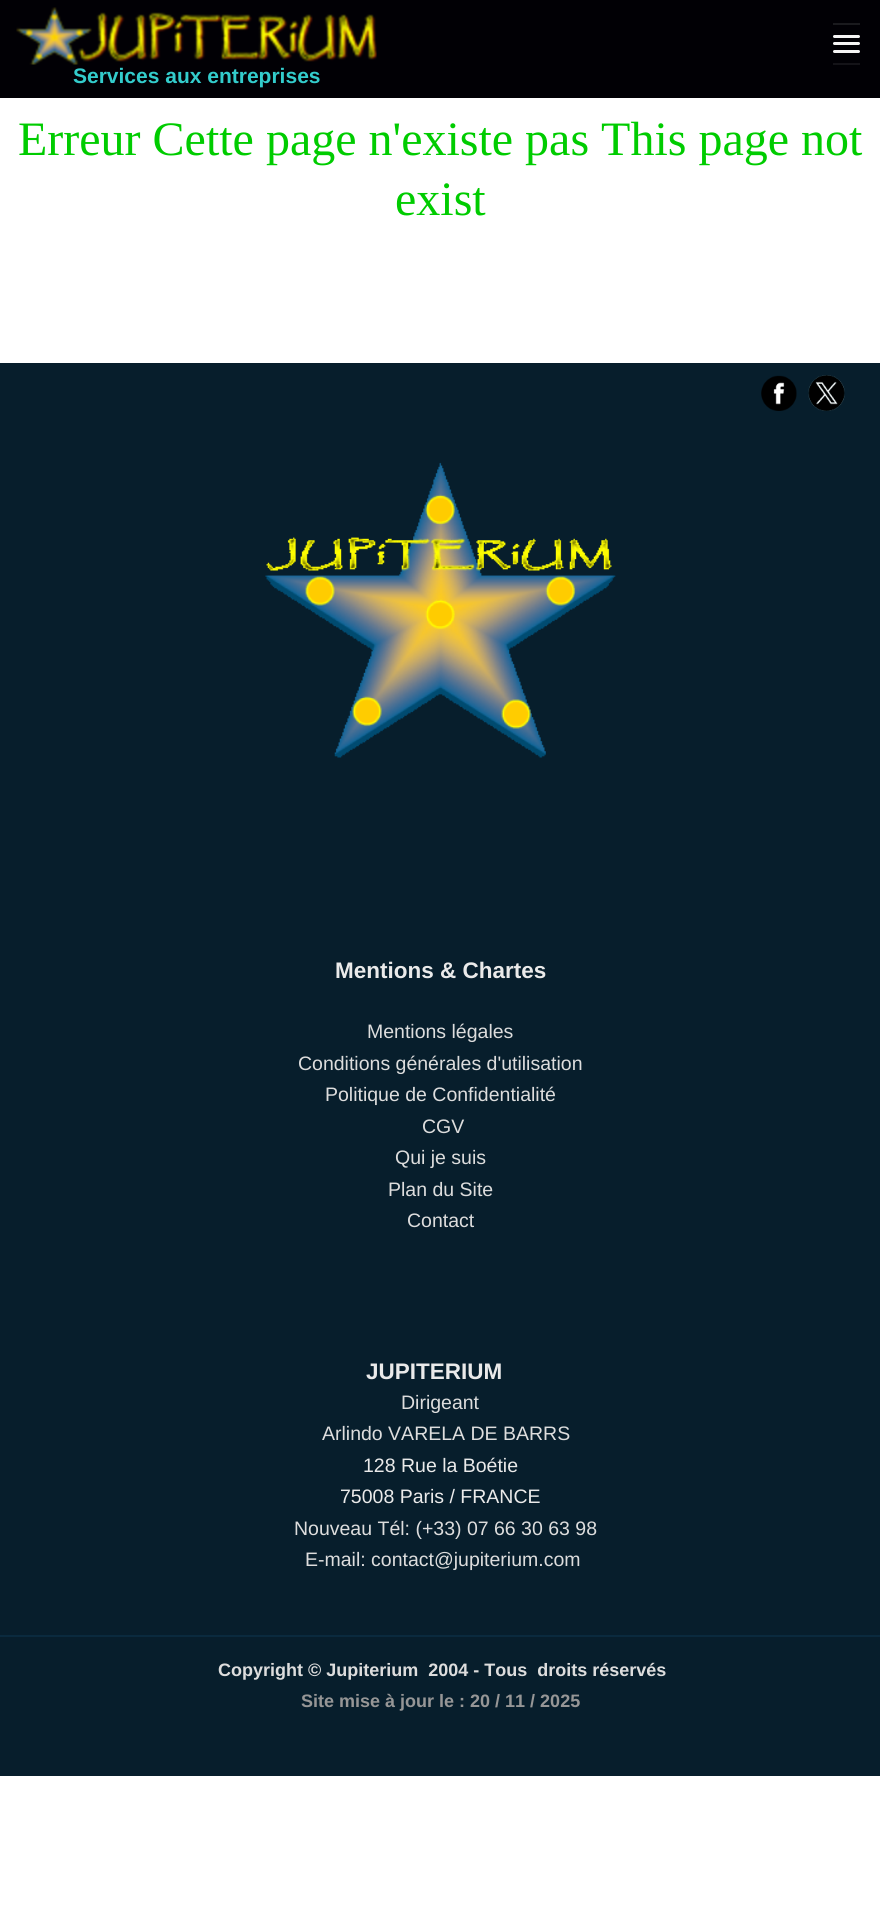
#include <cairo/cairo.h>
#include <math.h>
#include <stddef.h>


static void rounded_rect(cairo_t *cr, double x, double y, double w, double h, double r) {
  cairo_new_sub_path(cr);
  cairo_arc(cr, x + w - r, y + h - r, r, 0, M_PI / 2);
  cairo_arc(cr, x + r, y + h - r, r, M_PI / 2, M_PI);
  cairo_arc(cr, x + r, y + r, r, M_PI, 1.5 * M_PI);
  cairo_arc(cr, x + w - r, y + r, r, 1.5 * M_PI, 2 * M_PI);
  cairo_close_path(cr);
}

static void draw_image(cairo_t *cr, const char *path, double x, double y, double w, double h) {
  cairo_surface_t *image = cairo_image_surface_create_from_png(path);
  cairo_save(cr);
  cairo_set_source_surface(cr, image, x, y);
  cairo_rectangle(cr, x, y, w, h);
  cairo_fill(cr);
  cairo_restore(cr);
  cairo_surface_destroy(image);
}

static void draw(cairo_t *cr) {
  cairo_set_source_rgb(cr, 1, 1, 1);
  cairo_paint(cr);
  cairo_set_source_rgb(cr, 1 / 255.0, 0, 5 / 255.0);
  cairo_rectangle(cr, 0, 0, 880, 98);
  cairo_fill(cr);
  cairo_set_source_rgb(cr, 20 / 255.0, 19 / 255.0, 24 / 255.0);
  cairo_new_path(cr);
  cairo_move_to(cr, 833, 63);
  cairo_line_to(cr, 833, 65);
  cairo_line_to(cr, 860, 65);
  cairo_line_to(cr, 860, 24);
  cairo_line_to(cr, 860, 63);
  cairo_close_path(cr);
  cairo_fill(cr);
  cairo_set_source_rgb(cr, 26 / 255.0, 26 / 255.0, 30 / 255.0);
  cairo_rectangle(cr, 833, 23, 27, 2);
  cairo_fill(cr);
  cairo_set_source_rgb(cr, 245 / 255.0, 245 / 255.0, 245 / 255.0);
  rounded_rect(cr, 833, 35, 27, 3, 1.5);
  cairo_fill(cr);
  rounded_rect(cr, 833, 42, 27, 3, 1.5);
  cairo_fill(cr);
  rounded_rect(cr, 833, 50, 27, 3, 1.5);
  cairo_fill(cr);
  draw_image(cr, "images/1.png", 16, 7, 361, 58);
  cairo_set_source_rgb(cr, 7 / 255.0, 30 / 255.0, 44 / 255.0);
  cairo_rectangle(cr, 0, 363, 880, 1272);
  cairo_fill(cr);
  draw_image(cr, "images/2.png", 761, 375, 36, 36);
  draw_image(cr, "images/3.png", 808, 375, 37, 36);
  draw_image(cr, "images/4.png", 265, 462, 351, 296);
  cairo_rectangle(cr, 0, 1637, 880, 139);
  cairo_fill(cr);
  cairo_set_source_rgb(cr, 10 / 255.0, 42 / 255.0, 62 / 255.0);
  cairo_rectangle(cr, 0, 1635, 880, 2);
  cairo_fill(cr);
  cairo_select_font_face(cr, "Liberation Sans", CAIRO_FONT_SLANT_NORMAL, CAIRO_FONT_WEIGHT_BOLD);
  cairo_set_font_size(cr, 21);
  cairo_set_source_rgb(cr, 51 / 255.0, 204 / 255.0, 204 / 255.0);
  cairo_move_to(cr, 73, 83);
  cairo_show_text(cr, "Services aux entreprises");
  cairo_select_font_face(cr, "Liberation Serif", CAIRO_FONT_SLANT_NORMAL, CAIRO_FONT_WEIGHT_NORMAL);
  cairo_set_font_size(cr, 48);
  cairo_set_source_rgb(cr, 0, 204 / 255.0, 0);
  cairo_move_to(cr, 18, 155);
  cairo_show_text(cr, "Erreur Cette page n'existe pas This page not");
  cairo_move_to(cr, 395, 215);
  cairo_show_text(cr, "exist");
  cairo_select_font_face(cr, "Liberation Sans", CAIRO_FONT_SLANT_NORMAL, CAIRO_FONT_WEIGHT_BOLD);
  cairo_set_font_size(cr, 22.5);
  cairo_set_source_rgb(cr, 234 / 255.0, 234 / 255.0, 234 / 255.0);
  cairo_move_to(cr, 335, 978);
  cairo_show_text(cr, "Mentions & Chartes");
  cairo_select_font_face(cr, "Liberation Sans", CAIRO_FONT_SLANT_NORMAL, CAIRO_FONT_WEIGHT_NORMAL);
  cairo_set_font_size(cr, 19.5);
  cairo_set_source_rgb(cr, 221 / 255.0, 221 / 255.0, 221 / 255.0);
  cairo_move_to(cr, 367, 1038);
  cairo_show_text(cr, "Mentions légales");
  cairo_move_to(cr, 298, 1070);
  cairo_show_text(cr, "Conditions générales d'utilisation");
  cairo_move_to(cr, 325, 1101);
  cairo_show_text(cr, "Politique de Confidentialité");
  cairo_move_to(cr, 422, 1133);
  cairo_show_text(cr, "CGV");
  cairo_move_to(cr, 395, 1164);
  cairo_show_text(cr, "Qui je suis");
  cairo_move_to(cr, 388, 1196);
  cairo_show_text(cr, "Plan du Site");
  cairo_move_to(cr, 407, 1227);
  cairo_show_text(cr, "Contact");
  cairo_select_font_face(cr, "Liberation Sans", CAIRO_FONT_SLANT_NORMAL, CAIRO_FONT_WEIGHT_BOLD);
  cairo_set_font_size(cr, 22.5);
  cairo_set_source_rgb(cr, 234 / 255.0, 234 / 255.0, 234 / 255.0);
  cairo_move_to(cr, 366, 1379);
  cairo_show_text(cr, "JUPITERIUM");
  cairo_select_font_face(cr, "Liberation Sans", CAIRO_FONT_SLANT_NORMAL, CAIRO_FONT_WEIGHT_NORMAL);
  cairo_set_font_size(cr, 19.5);
  cairo_set_source_rgb(cr, 221 / 255.0, 221 / 255.0, 221 / 255.0);
  cairo_move_to(cr, 401, 1409);
  cairo_show_text(cr, "Dirigeant");
  cairo_move_to(cr, 322, 1440);
  cairo_show_text(cr, "Arlindo VARELA DE BARRS");
  cairo_set_source_rgb(cr, 234 / 255.0, 234 / 255.0, 234 / 255.0);
  cairo_move_to(cr, 363, 1472);
  cairo_show_text(cr, "128 Rue la Boétie");
  cairo_move_to(cr, 340, 1503);
  cairo_show_text(cr, "75008 Paris / FRANCE");
  cairo_set_source_rgb(cr, 221 / 255.0, 221 / 255.0, 221 / 255.0);
  cairo_move_to(cr, 294, 1535);
  cairo_show_text(cr, "Nouveau Tél: (+33) 07 66 30 63 98");
  cairo_move_to(cr, 305, 1566);
  cairo_show_text(cr, "E-mail: contact@jupiterium.com");
  cairo_select_font_face(cr, "Liberation Sans", CAIRO_FONT_SLANT_NORMAL, CAIRO_FONT_WEIGHT_BOLD);
  cairo_set_font_size(cr, 18);
  cairo_move_to(cr, 218, 1676);
  cairo_show_text(cr, "Copyright © Jupiterium  2004 - Tous  droits réservés");
  cairo_set_source_rgb(cr, 150 / 255.0, 150 / 255.0, 150 / 255.0);
  cairo_move_to(cr, 301, 1707);
  cairo_show_text(cr, "Site mise à jour le : 20 / 11 / 2025");
}

int main(void) {
  cairo_surface_t *surface = cairo_image_surface_create(CAIRO_FORMAT_RGB24, 880, 1923);
  cairo_t *cr = cairo_create(surface);
  cairo_font_options_t *options = cairo_font_options_create();
  cairo_font_options_set_hint_metrics(options, CAIRO_HINT_METRICS_OFF);
  cairo_font_options_set_hint_style(options, CAIRO_HINT_STYLE_NONE);
  cairo_set_font_options(cr, options);
  cairo_set_miter_limit(cr, 4);
  draw(cr);
  cairo_surface_write_to_png(surface, "out.png");
  cairo_font_options_destroy(options);
  cairo_destroy(cr);
  cairo_surface_destroy(surface);
  return 0;
}
